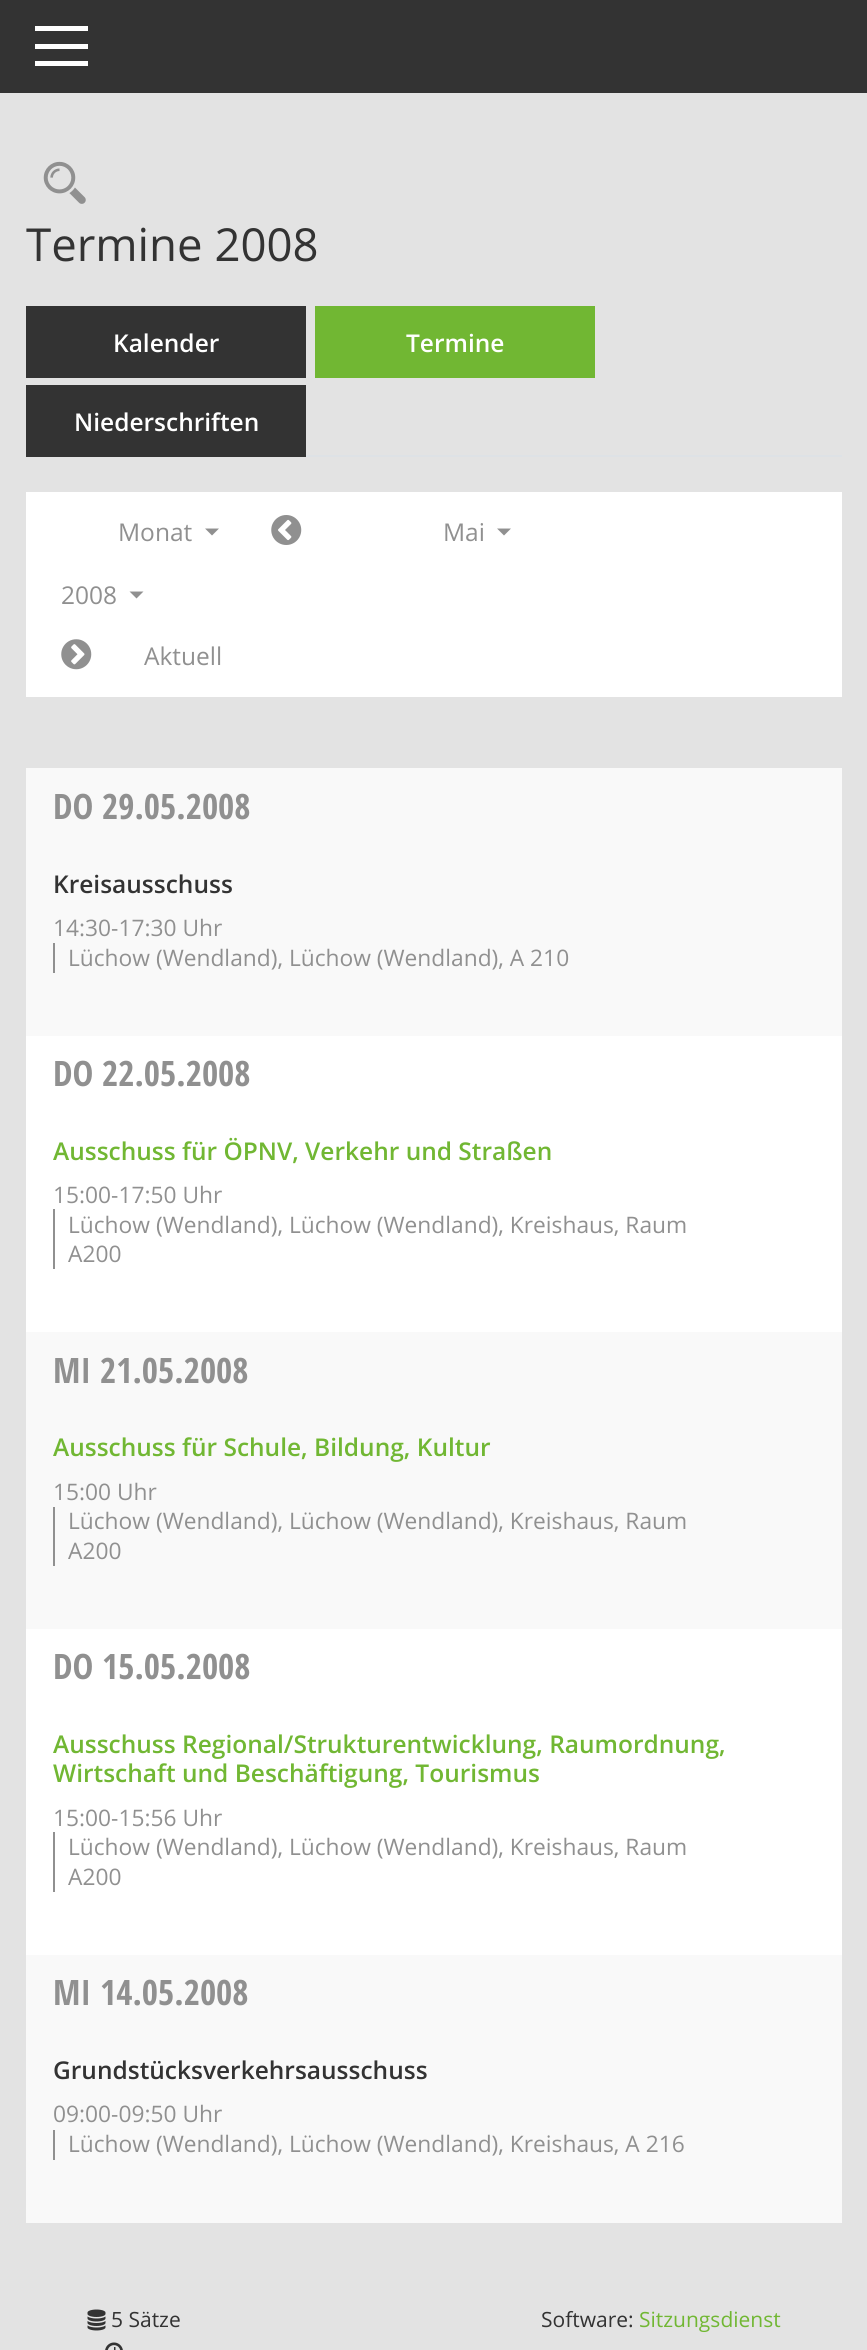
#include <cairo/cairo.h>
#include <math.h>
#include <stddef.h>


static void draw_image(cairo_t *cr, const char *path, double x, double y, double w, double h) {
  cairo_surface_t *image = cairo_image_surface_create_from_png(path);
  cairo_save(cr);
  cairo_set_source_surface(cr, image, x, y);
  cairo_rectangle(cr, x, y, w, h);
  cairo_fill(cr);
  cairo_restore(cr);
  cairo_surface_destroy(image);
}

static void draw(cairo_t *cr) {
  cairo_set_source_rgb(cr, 227 / 255.0, 227 / 255.0, 227 / 255.0);
  cairo_paint(cr);
  cairo_set_source_rgb(cr, 51 / 255.0, 51 / 255.0, 51 / 255.0);
  cairo_rectangle(cr, 0, 0, 867, 93);
  cairo_fill(cr);
  cairo_set_source_rgb(cr, 1, 1, 1);
  cairo_rectangle(cr, 35, 26, 53, 5);
  cairo_fill(cr);
  cairo_rectangle(cr, 35, 44, 53, 5);
  cairo_fill(cr);
  cairo_rectangle(cr, 35, 61, 53, 5);
  cairo_fill(cr);
  draw_image(cr, "images/1.png", 43, 161, 43, 43);
  cairo_set_source_rgb(cr, 222 / 255.0, 226 / 255.0, 230 / 255.0);
  cairo_rectangle(cr, 306, 455, 536, 2);
  cairo_fill(cr);
  cairo_set_source_rgb(cr, 51 / 255.0, 51 / 255.0, 51 / 255.0);
  cairo_rectangle(cr, 26, 306, 280, 72);
  cairo_fill(cr);
  cairo_set_source_rgb(cr, 113 / 255.0, 183 / 255.0, 51 / 255.0);
  cairo_rectangle(cr, 315, 306, 280, 72);
  cairo_fill(cr);
  cairo_set_source_rgb(cr, 51 / 255.0, 51 / 255.0, 51 / 255.0);
  cairo_rectangle(cr, 26, 385, 280, 72);
  cairo_fill(cr);
  cairo_set_source_rgb(cr, 1, 1, 1);
  cairo_rectangle(cr, 26, 492, 816, 205);
  cairo_fill(cr);
  cairo_set_source_rgb(cr, 144 / 255.0, 144 / 255.0, 144 / 255.0);
  cairo_new_path(cr);
  cairo_move_to(cr, 205, 528.5);
  cairo_line_to(cr, 219, 528.5);
  cairo_line_to(cr, 212, 535.5);
  cairo_close_path(cr);
  cairo_fill(cr);
  draw_image(cr, "images/2.png", 271, 515, 31, 30);
  cairo_new_path(cr);
  cairo_move_to(cr, 497, 528.5);
  cairo_line_to(cr, 511, 528.5);
  cairo_line_to(cr, 504, 535.5);
  cairo_close_path(cr);
  cairo_fill(cr);
  cairo_new_path(cr);
  cairo_move_to(cr, 129.5, 591.5);
  cairo_line_to(cr, 143.5, 591.5);
  cairo_line_to(cr, 136.5, 598.5);
  cairo_close_path(cr);
  cairo_fill(cr);
  draw_image(cr, "images/3.png", 61, 639, 31, 31);
  cairo_set_source_rgb(cr, 1, 1, 1);
  cairo_rectangle(cr, 26, 1036, 816, 919);
  cairo_fill(cr);
  cairo_set_source_rgb(cr, 249 / 255.0, 249 / 255.0, 249 / 255.0);
  cairo_rectangle(cr, 26, 768, 816, 268);
  cairo_fill(cr);
  cairo_set_source_rgb(cr, 144 / 255.0, 144 / 255.0, 144 / 255.0);
  cairo_rectangle(cr, 53, 943, 2, 30);
  cairo_fill(cr);
  cairo_rectangle(cr, 53, 1209, 2, 60);
  cairo_fill(cr);
  cairo_set_source_rgb(cr, 249 / 255.0, 249 / 255.0, 249 / 255.0);
  cairo_rectangle(cr, 26, 1332, 816, 297);
  cairo_fill(cr);
  cairo_set_source_rgb(cr, 144 / 255.0, 144 / 255.0, 144 / 255.0);
  cairo_rectangle(cr, 53, 1507, 2, 59);
  cairo_fill(cr);
  cairo_rectangle(cr, 53, 1832, 2, 60);
  cairo_fill(cr);
  cairo_set_source_rgb(cr, 249 / 255.0, 249 / 255.0, 249 / 255.0);
  cairo_rectangle(cr, 26, 1955, 816, 268);
  cairo_fill(cr);
  cairo_set_source_rgb(cr, 144 / 255.0, 144 / 255.0, 144 / 255.0);
  cairo_rectangle(cr, 53, 2130, 2, 30);
  cairo_fill(cr);
  draw_image(cr, "images/4.png", 87, 2309, 19, 22);
  draw_image(cr, "images/5.png", 105, 2342, 18, 8);
  cairo_select_font_face(cr, "Open Sans", CAIRO_FONT_SLANT_NORMAL, CAIRO_FONT_WEIGHT_NORMAL);
  cairo_set_font_size(cr, 45.5);
  cairo_set_source_rgb(cr, 51 / 255.0, 51 / 255.0, 51 / 255.0);
  cairo_move_to(cr, 26, 261);
  cairo_show_text(cr, "Termine 2008");
  cairo_select_font_face(cr, "Open Sans SemiBold", CAIRO_FONT_SLANT_NORMAL, CAIRO_FONT_WEIGHT_NORMAL);
  cairo_set_font_size(cr, 24.5);
  cairo_set_source_rgb(cr, 1, 1, 1);
  cairo_move_to(cr, 113, 352);
  cairo_show_text(cr, "Kalender");
  cairo_move_to(cr, 406, 352);
  cairo_show_text(cr, "Termine");
  cairo_move_to(cr, 74, 431);
  cairo_show_text(cr, "Niederschriften");
  cairo_select_font_face(cr, "Open Sans", CAIRO_FONT_SLANT_NORMAL, CAIRO_FONT_WEIGHT_NORMAL);
  cairo_set_source_rgb(cr, 144 / 255.0, 144 / 255.0, 144 / 255.0);
  cairo_move_to(cr, 118, 541);
  cairo_show_text(cr, "Monat");
  cairo_move_to(cr, 443, 541);
  cairo_show_text(cr, "Mai");
  cairo_move_to(cr, 61, 604);
  cairo_show_text(cr, "2008");
  cairo_move_to(cr, 144, 665);
  cairo_show_text(cr, "Aktuell");
  cairo_select_font_face(cr, "Open Sans Condensed", CAIRO_FONT_SLANT_NORMAL, CAIRO_FONT_WEIGHT_BOLD);
  cairo_set_font_size(cr, 35);
  cairo_move_to(cr, 53, 819);
  cairo_show_text(cr, "DO");
  cairo_move_to(cr, 102, 819);
  cairo_show_text(cr, "29.05.2008");
  cairo_select_font_face(cr, "Open Sans SemiBold", CAIRO_FONT_SLANT_NORMAL, CAIRO_FONT_WEIGHT_NORMAL);
  cairo_set_font_size(cr, 24.5);
  cairo_set_source_rgb(cr, 51 / 255.0, 51 / 255.0, 51 / 255.0);
  cairo_move_to(cr, 53, 893);
  cairo_show_text(cr, "Kreisausschuss");
  cairo_select_font_face(cr, "Open Sans", CAIRO_FONT_SLANT_NORMAL, CAIRO_FONT_WEIGHT_NORMAL);
  cairo_set_font_size(cr, 22.75);
  cairo_set_source_rgb(cr, 144 / 255.0, 144 / 255.0, 144 / 255.0);
  cairo_move_to(cr, 53, 936);
  cairo_show_text(cr, "14:30-17:30 Uhr");
  cairo_move_to(cr, 68, 966);
  cairo_show_text(cr, "Lüchow (Wendland), Lüchow (Wendland), A 210");
  cairo_select_font_face(cr, "Open Sans Condensed", CAIRO_FONT_SLANT_NORMAL, CAIRO_FONT_WEIGHT_BOLD);
  cairo_set_font_size(cr, 35);
  cairo_move_to(cr, 53, 1086);
  cairo_show_text(cr, "DO");
  cairo_move_to(cr, 102, 1086);
  cairo_show_text(cr, "22.05.2008");
  cairo_select_font_face(cr, "Open Sans SemiBold", CAIRO_FONT_SLANT_NORMAL, CAIRO_FONT_WEIGHT_NORMAL);
  cairo_set_font_size(cr, 24.5);
  cairo_set_source_rgb(cr, 113 / 255.0, 183 / 255.0, 51 / 255.0);
  cairo_move_to(cr, 53, 1160);
  cairo_show_text(cr, "Ausschuss für ÖPNV, Verkehr und Straßen");
  cairo_select_font_face(cr, "Open Sans", CAIRO_FONT_SLANT_NORMAL, CAIRO_FONT_WEIGHT_NORMAL);
  cairo_set_font_size(cr, 22.75);
  cairo_set_source_rgb(cr, 144 / 255.0, 144 / 255.0, 144 / 255.0);
  cairo_move_to(cr, 53, 1203);
  cairo_show_text(cr, "15:00-17:50 Uhr");
  cairo_move_to(cr, 68, 1233);
  cairo_show_text(cr, "Lüchow (Wendland), Lüchow (Wendland), Kreishaus, Raum");
  cairo_move_to(cr, 68, 1262);
  cairo_show_text(cr, "A200");
  cairo_select_font_face(cr, "Open Sans Condensed", CAIRO_FONT_SLANT_NORMAL, CAIRO_FONT_WEIGHT_BOLD);
  cairo_set_font_size(cr, 35);
  cairo_move_to(cr, 53, 1383);
  cairo_show_text(cr, "MI");
  cairo_move_to(cr, 100, 1383);
  cairo_show_text(cr, "21.05.2008");
  cairo_select_font_face(cr, "Open Sans SemiBold", CAIRO_FONT_SLANT_NORMAL, CAIRO_FONT_WEIGHT_NORMAL);
  cairo_set_font_size(cr, 24.5);
  cairo_set_source_rgb(cr, 113 / 255.0, 183 / 255.0, 51 / 255.0);
  cairo_move_to(cr, 53, 1456);
  cairo_show_text(cr, "Ausschuss für Schule, Bildung, Kultur");
  cairo_select_font_face(cr, "Open Sans", CAIRO_FONT_SLANT_NORMAL, CAIRO_FONT_WEIGHT_NORMAL);
  cairo_set_font_size(cr, 22.75);
  cairo_set_source_rgb(cr, 144 / 255.0, 144 / 255.0, 144 / 255.0);
  cairo_move_to(cr, 53, 1500);
  cairo_show_text(cr, "15:00 Uhr");
  cairo_move_to(cr, 68, 1529);
  cairo_show_text(cr, "Lüchow (Wendland), Lüchow (Wendland), Kreishaus, Raum");
  cairo_move_to(cr, 68, 1559);
  cairo_show_text(cr, "A200");
  cairo_select_font_face(cr, "Open Sans Condensed", CAIRO_FONT_SLANT_NORMAL, CAIRO_FONT_WEIGHT_BOLD);
  cairo_set_font_size(cr, 35);
  cairo_move_to(cr, 53, 1679);
  cairo_show_text(cr, "DO");
  cairo_move_to(cr, 102, 1679);
  cairo_show_text(cr, "15.05.2008");
  cairo_select_font_face(cr, "Open Sans SemiBold", CAIRO_FONT_SLANT_NORMAL, CAIRO_FONT_WEIGHT_NORMAL);
  cairo_set_font_size(cr, 24.5);
  cairo_set_source_rgb(cr, 113 / 255.0, 183 / 255.0, 51 / 255.0);
  cairo_move_to(cr, 53, 1753);
  cairo_show_text(cr, "Ausschuss Regional/Strukturentwicklung, Raumordnung,");
  cairo_move_to(cr, 53, 1782);
  cairo_show_text(cr, "Wirtschaft und Beschäftigung, Tourismus");
  cairo_select_font_face(cr, "Open Sans", CAIRO_FONT_SLANT_NORMAL, CAIRO_FONT_WEIGHT_NORMAL);
  cairo_set_font_size(cr, 22.75);
  cairo_set_source_rgb(cr, 144 / 255.0, 144 / 255.0, 144 / 255.0);
  cairo_move_to(cr, 53, 1826);
  cairo_show_text(cr, "15:00-15:56 Uhr");
  cairo_move_to(cr, 68, 1855);
  cairo_show_text(cr, "Lüchow (Wendland), Lüchow (Wendland), Kreishaus, Raum");
  cairo_move_to(cr, 68, 1885);
  cairo_show_text(cr, "A200");
  cairo_select_font_face(cr, "Open Sans Condensed", CAIRO_FONT_SLANT_NORMAL, CAIRO_FONT_WEIGHT_BOLD);
  cairo_set_font_size(cr, 35);
  cairo_move_to(cr, 53, 2005);
  cairo_show_text(cr, "MI");
  cairo_move_to(cr, 100, 2005);
  cairo_show_text(cr, "14.05.2008");
  cairo_select_font_face(cr, "Open Sans SemiBold", CAIRO_FONT_SLANT_NORMAL, CAIRO_FONT_WEIGHT_NORMAL);
  cairo_set_font_size(cr, 24.5);
  cairo_set_source_rgb(cr, 51 / 255.0, 51 / 255.0, 51 / 255.0);
  cairo_move_to(cr, 53, 2079);
  cairo_show_text(cr, "Grundstücksverkehrsausschuss");
  cairo_select_font_face(cr, "Open Sans", CAIRO_FONT_SLANT_NORMAL, CAIRO_FONT_WEIGHT_NORMAL);
  cairo_set_font_size(cr, 22.75);
  cairo_set_source_rgb(cr, 144 / 255.0, 144 / 255.0, 144 / 255.0);
  cairo_move_to(cr, 53, 2122);
  cairo_show_text(cr, "09:00-09:50 Uhr");
  cairo_move_to(cr, 68, 2152);
  cairo_show_text(cr, "Lüchow (Wendland), Lüchow (Wendland), Kreishaus, A 216");
  cairo_set_font_size(cr, 21);
  cairo_set_source_rgb(cr, 51 / 255.0, 51 / 255.0, 51 / 255.0);
  cairo_move_to(cr, 111, 2327);
  cairo_show_text(cr, "5 Sätze");
  cairo_move_to(cr, 541, 2327);
  cairo_show_text(cr, "Software:");
  cairo_set_source_rgb(cr, 113 / 255.0, 183 / 255.0, 51 / 255.0);
  cairo_move_to(cr, 639, 2327);
  cairo_show_text(cr, "Sitzungsdienst");
}

int main(void) {
  cairo_surface_t *surface = cairo_image_surface_create(CAIRO_FORMAT_RGB24, 867, 2350);
  cairo_t *cr = cairo_create(surface);
  cairo_font_options_t *options = cairo_font_options_create();
  cairo_font_options_set_hint_metrics(options, CAIRO_HINT_METRICS_OFF);
  cairo_font_options_set_hint_style(options, CAIRO_HINT_STYLE_NONE);
  cairo_set_font_options(cr, options);
  cairo_set_miter_limit(cr, 4);
  draw(cr);
  cairo_surface_write_to_png(surface, "out.png");
  cairo_font_options_destroy(options);
  cairo_destroy(cr);
  cairo_surface_destroy(surface);
  return 0;
}
